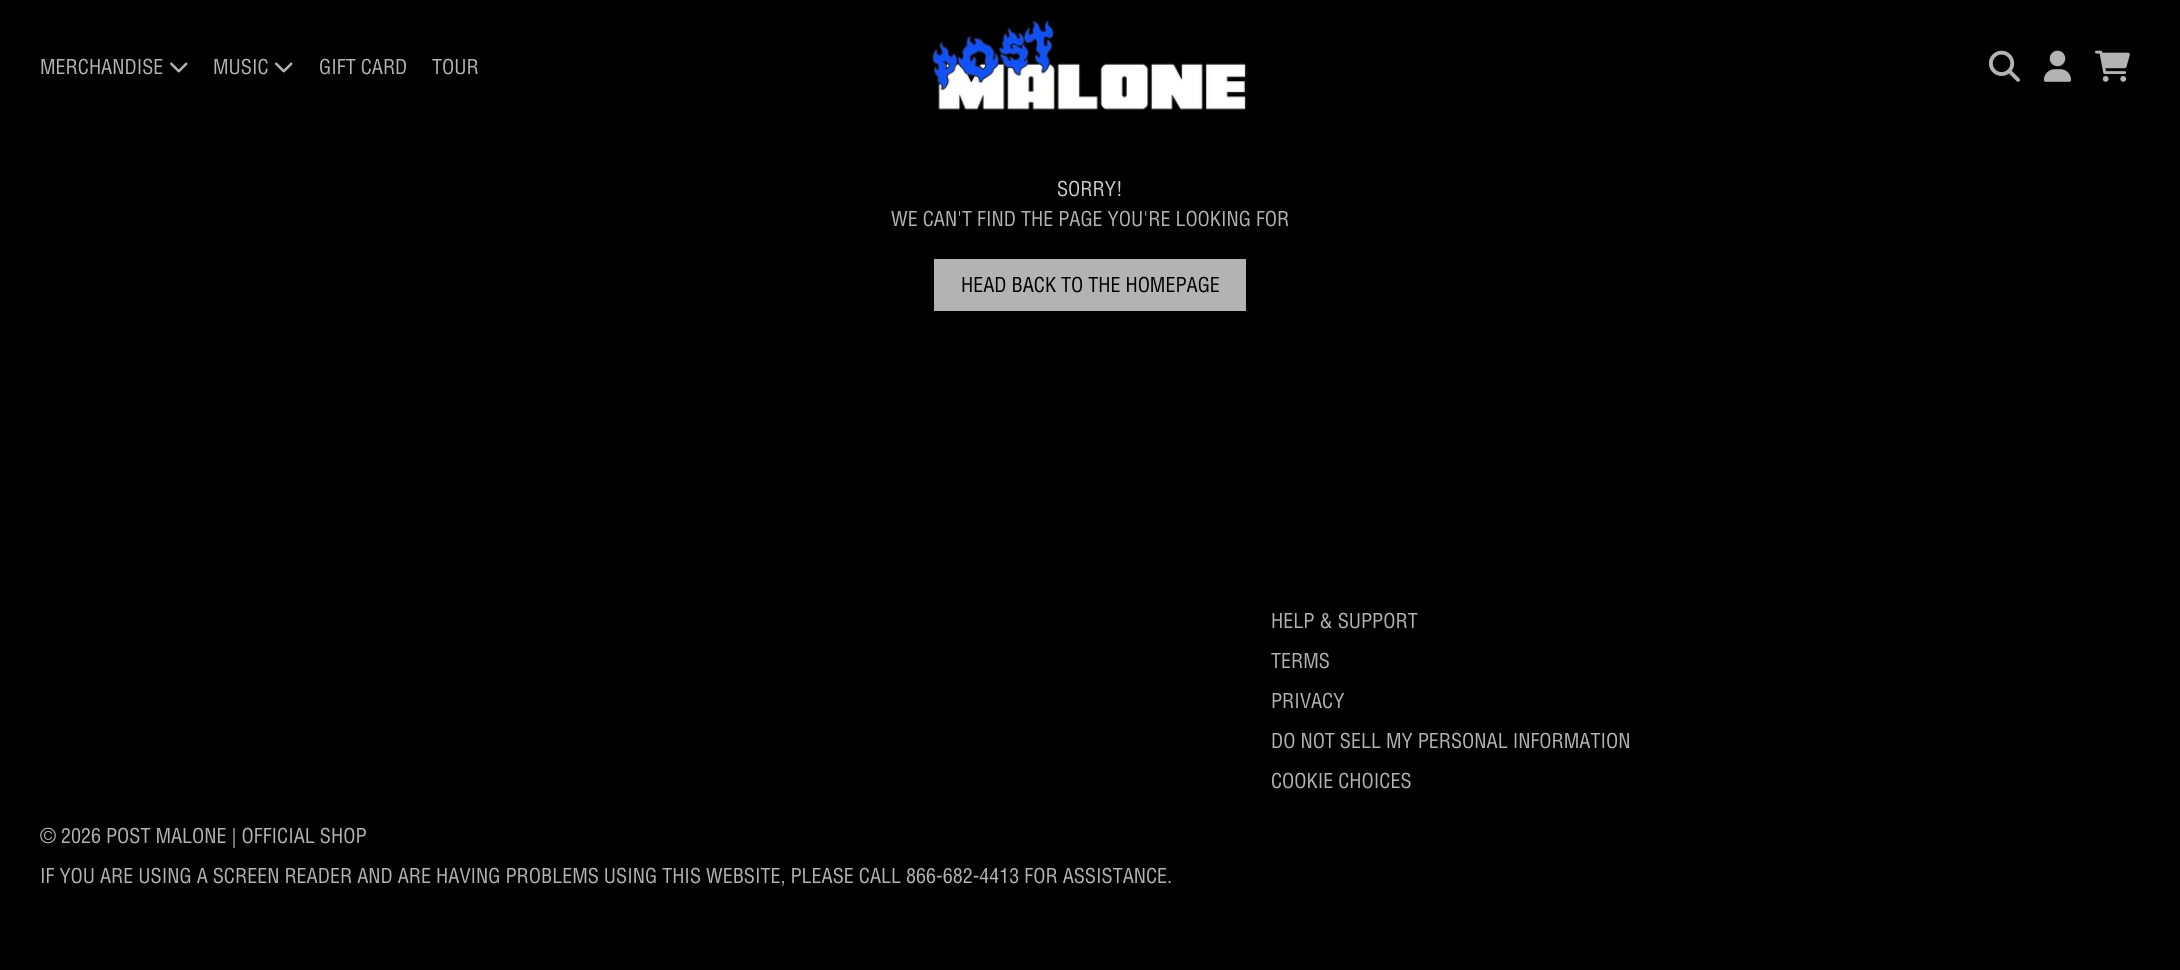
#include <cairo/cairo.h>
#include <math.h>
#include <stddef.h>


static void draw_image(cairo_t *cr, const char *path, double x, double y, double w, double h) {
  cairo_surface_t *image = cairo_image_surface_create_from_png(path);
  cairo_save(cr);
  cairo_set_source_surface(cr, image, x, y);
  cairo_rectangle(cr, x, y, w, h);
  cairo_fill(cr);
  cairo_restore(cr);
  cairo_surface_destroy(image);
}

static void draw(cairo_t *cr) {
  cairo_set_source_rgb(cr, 0, 0, 0);
  cairo_paint(cr);
  draw_image(cr, "images/1.png", 170, 62, 18, 11);
  draw_image(cr, "images/1.png", 275, 62, 18, 11);
  draw_image(cr, "images/2.png", 931, 20, 315, 90);
  draw_image(cr, "images/3.png", 1988, 50, 32, 32);
  draw_image(cr, "images/4.png", 2043, 50, 29, 32);
  draw_image(cr, "images/5.png", 2095, 50, 35, 32);
  cairo_set_source_rgb(cr, 179 / 255.0, 179 / 255.0, 179 / 255.0);
  cairo_rectangle(cr, 934.5, 259.5, 311, 51);
  cairo_fill_preserve(cr);
  cairo_set_line_width(cr, 1);
  cairo_stroke(cr);
  cairo_select_font_face(cr, "Helvetica", CAIRO_FONT_SLANT_NORMAL, CAIRO_FONT_WEIGHT_NORMAL);
  cairo_set_font_size(cr, 20);
  cairo_move_to(cr, 40, 74);
  cairo_show_text(cr, "MERCHANDISE");
  cairo_move_to(cr, 213, 74);
  cairo_show_text(cr, "MUSIC");
  cairo_move_to(cr, 319, 74);
  cairo_show_text(cr, "GIFT CARD");
  cairo_move_to(cr, 432, 74);
  cairo_show_text(cr, "TOUR");
  cairo_set_source_rgb(cr, 204 / 255.0, 204 / 255.0, 204 / 255.0);
  cairo_move_to(cr, 1057, 196);
  cairo_show_text(cr, "SORRY!");
  cairo_set_source_rgb(cr, 179 / 255.0, 179 / 255.0, 179 / 255.0);
  cairo_move_to(cr, 891, 226);
  cairo_show_text(cr, "WE CAN'T FIND THE PAGE YOU'RE LOOKING FOR");
  cairo_set_source_rgb(cr, 0, 0, 0);
  cairo_move_to(cr, 961, 292);
  cairo_show_text(cr, "HEAD BACK TO THE HOMEPAGE");
  cairo_set_source_rgb(cr, 179 / 255.0, 179 / 255.0, 179 / 255.0);
  cairo_move_to(cr, 1271, 628);
  cairo_show_text(cr, "HELP & SUPPORT");
  cairo_move_to(cr, 1271, 668);
  cairo_show_text(cr, "TERMS");
  cairo_move_to(cr, 1271, 708);
  cairo_show_text(cr, "PRIVACY");
  cairo_move_to(cr, 1271, 748);
  cairo_show_text(cr, "DO NOT SELL MY PERSONAL INFORMATION");
  cairo_move_to(cr, 1271, 788);
  cairo_show_text(cr, "COOKIE CHOICES");
  cairo_move_to(cr, 40, 843);
  cairo_show_text(cr, "© 2026 POST MALONE | OFFICIAL SHOP");
  cairo_move_to(cr, 40, 883);
  cairo_show_text(cr, "IF YOU ARE USING A SCREEN READER AND ARE HAVING PROBLEMS USING THIS WEBSITE, PLEASE CALL 866-682-4413 FOR ASSISTANCE.");
}

int main(void) {
  cairo_surface_t *surface = cairo_image_surface_create(CAIRO_FORMAT_RGB24, 2180, 970);
  cairo_t *cr = cairo_create(surface);
  cairo_font_options_t *options = cairo_font_options_create();
  cairo_font_options_set_hint_metrics(options, CAIRO_HINT_METRICS_OFF);
  cairo_font_options_set_hint_style(options, CAIRO_HINT_STYLE_NONE);
  cairo_set_font_options(cr, options);
  cairo_set_miter_limit(cr, 4);
  draw(cr);
  cairo_surface_write_to_png(surface, "out.png");
  cairo_font_options_destroy(options);
  cairo_destroy(cr);
  cairo_surface_destroy(surface);
  return 0;
}
